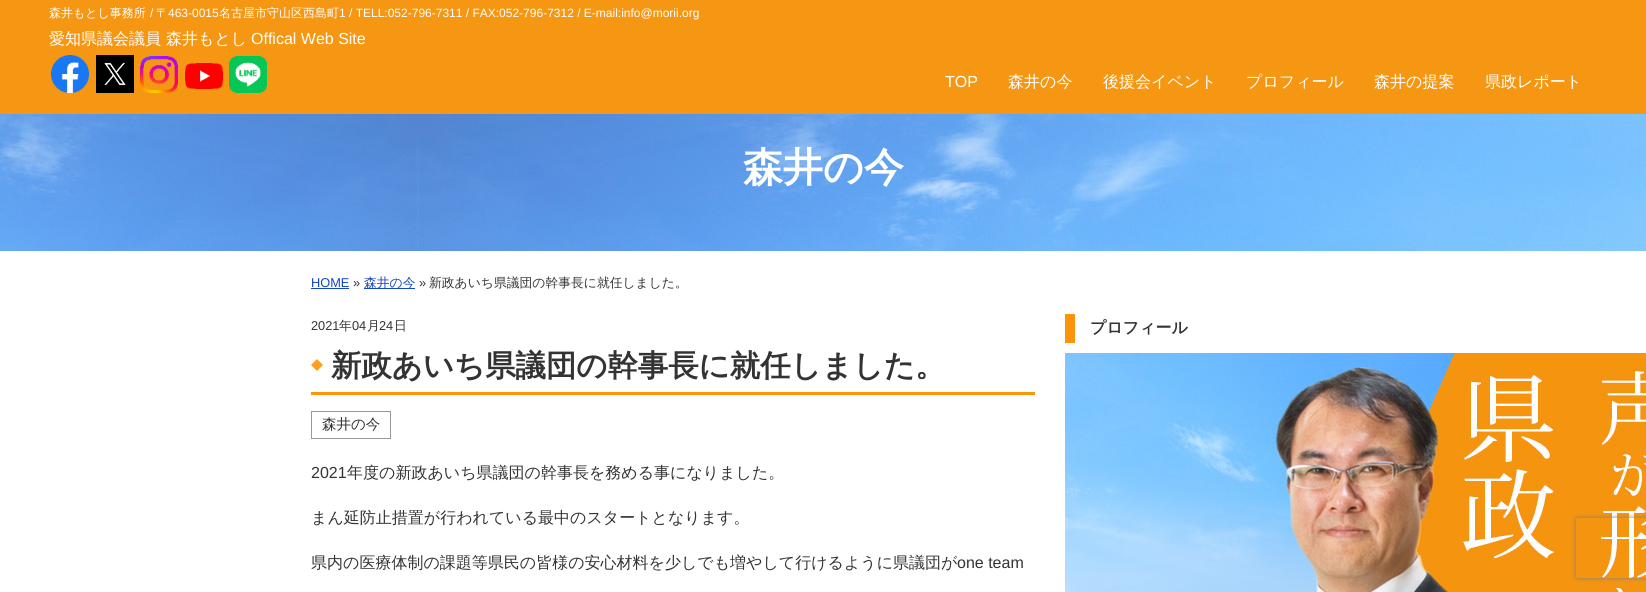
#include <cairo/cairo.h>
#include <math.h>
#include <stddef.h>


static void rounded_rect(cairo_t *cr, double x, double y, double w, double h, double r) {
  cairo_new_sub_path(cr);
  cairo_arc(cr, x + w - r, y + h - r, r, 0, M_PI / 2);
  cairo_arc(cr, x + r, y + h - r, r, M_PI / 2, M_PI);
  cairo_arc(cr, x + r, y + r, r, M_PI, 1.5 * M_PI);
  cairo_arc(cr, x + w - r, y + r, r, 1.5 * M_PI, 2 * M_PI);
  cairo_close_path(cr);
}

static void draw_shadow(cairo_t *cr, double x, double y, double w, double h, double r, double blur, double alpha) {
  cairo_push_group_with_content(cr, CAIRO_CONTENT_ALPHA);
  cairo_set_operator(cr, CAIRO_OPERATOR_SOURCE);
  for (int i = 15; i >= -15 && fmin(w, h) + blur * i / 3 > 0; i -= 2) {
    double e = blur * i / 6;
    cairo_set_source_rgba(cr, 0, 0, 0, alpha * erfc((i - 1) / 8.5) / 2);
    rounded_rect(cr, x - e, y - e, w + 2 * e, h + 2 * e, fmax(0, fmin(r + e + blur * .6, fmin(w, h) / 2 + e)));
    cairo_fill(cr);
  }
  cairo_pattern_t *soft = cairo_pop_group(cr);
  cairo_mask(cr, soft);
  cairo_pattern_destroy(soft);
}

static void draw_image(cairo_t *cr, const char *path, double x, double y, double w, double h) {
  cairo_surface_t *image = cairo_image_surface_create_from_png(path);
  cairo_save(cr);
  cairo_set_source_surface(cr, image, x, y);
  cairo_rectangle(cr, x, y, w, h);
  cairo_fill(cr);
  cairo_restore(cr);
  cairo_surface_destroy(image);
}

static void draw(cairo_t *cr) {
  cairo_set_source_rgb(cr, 1, 1, 1);
  cairo_paint(cr);
  cairo_set_source_rgb(cr, 246 / 255.0, 151 / 255.0, 20 / 255.0);
  cairo_rectangle(cr, 0, 0, 1646, 114);
  cairo_fill(cr);
  draw_image(cr, "images/1.png", 51, 55, 38, 38);
  draw_image(cr, "images/2.png", 96, 55, 38, 38);
  draw_image(cr, "images/3.png", 140, 56, 38, 37);
  draw_image(cr, "images/4.png", 185, 63, 38, 26);
  draw_image(cr, "images/5.png", 229, 56, 38, 37);
  draw_image(cr, "images/6.png", 0, 114, 1646, 137);
  cairo_set_source_rgb(cr, 21 / 255.0, 70 / 255.0, 195 / 255.0);
  cairo_rectangle(cr, 311, 288, 38, 1);
  cairo_fill(cr);
  cairo_rectangle(cr, 364, 288, 51, 1);
  cairo_fill(cr);
  draw_image(cr, "images/7.png", 311, 359, 12, 12);
  cairo_set_source_rgb(cr, 251 / 255.0, 150 / 255.0, 11 / 255.0);
  cairo_rectangle(cr, 311, 392, 724, 3);
  cairo_fill(cr);
  cairo_rectangle(cr, 311.5, 411.5, 79, 27);
  cairo_set_source_rgb(cr, 153 / 255.0, 153 / 255.0, 153 / 255.0);
  cairo_set_line_width(cr, 1);
  cairo_stroke(cr);
  cairo_set_source_rgb(cr, 251 / 255.0, 150 / 255.0, 11 / 255.0);
  cairo_rectangle(cr, 1065, 314, 10, 29);
  cairo_fill(cr);
  draw_image(cr, "images/8.png", 1065, 353, 581, 239);
  cairo_save(cr);
  cairo_set_fill_rule(cr, CAIRO_FILL_RULE_EVEN_ODD);
  cairo_new_path(cr);
  cairo_move_to(cr, 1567, 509);
  cairo_line_to(cr, 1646, 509);
  cairo_line_to(cr, 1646, 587);
  cairo_line_to(cr, 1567, 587);
  cairo_close_path(cr);
  cairo_move_to(cr, 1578, 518);
  cairo_line_to(cr, 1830, 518);
  cairo_curve_to(cr, 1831, 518, 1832, 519, 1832, 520);
  cairo_line_to(cr, 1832, 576);
  cairo_curve_to(cr, 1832, 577, 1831, 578, 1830, 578);
  cairo_line_to(cr, 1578, 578);
  cairo_curve_to(cr, 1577, 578, 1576, 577, 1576, 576);
  cairo_line_to(cr, 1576, 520);
  cairo_curve_to(cr, 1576, 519, 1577, 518, 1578, 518);
  cairo_close_path(cr);
  cairo_clip(cr);
  cairo_set_source_rgb(cr, 128 / 255.0, 128 / 255.0, 128 / 255.0);
  draw_shadow(cr, 1576, 518, 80, 60, 2, 2.5, 1);
  cairo_restore(cr);
  cairo_select_font_face(cr, "WenQuanYi Zen Hei Medium", CAIRO_FONT_SLANT_NORMAL, CAIRO_FONT_WEIGHT_NORMAL);
  cairo_set_font_size(cr, 12);
  cairo_set_source_rgb(cr, 1, 1, 1);
  cairo_move_to(cr, 49, 17);
  cairo_show_text(cr, "森井もとし事務所");
  cairo_select_font_face(cr, "Liberation Sans", CAIRO_FONT_SLANT_NORMAL, CAIRO_FONT_WEIGHT_NORMAL);
  cairo_move_to(cr, 150, 17);
  cairo_show_text(cr, "/");
  cairo_select_font_face(cr, "WenQuanYi Zen Hei Medium", CAIRO_FONT_SLANT_NORMAL, CAIRO_FONT_WEIGHT_NORMAL);
  cairo_move_to(cr, 156, 17);
  cairo_show_text(cr, "〒");
  cairo_select_font_face(cr, "Liberation Sans", CAIRO_FONT_SLANT_NORMAL, CAIRO_FONT_WEIGHT_NORMAL);
  cairo_move_to(cr, 168, 17);
  cairo_show_text(cr, "463-0015");
  cairo_select_font_face(cr, "WenQuanYi Zen Hei Medium", CAIRO_FONT_SLANT_NORMAL, CAIRO_FONT_WEIGHT_NORMAL);
  cairo_move_to(cr, 219, 17);
  cairo_show_text(cr, "名古屋市守山区西島町");
  cairo_select_font_face(cr, "Liberation Sans", CAIRO_FONT_SLANT_NORMAL, CAIRO_FONT_WEIGHT_NORMAL);
  cairo_move_to(cr, 339, 17);
  cairo_show_text(cr, "1 / TELL:052-796-7311 / FAX:052-796-7312 / E-mail:info@morii.org");
  cairo_select_font_face(cr, "WenQuanYi Zen Hei Medium", CAIRO_FONT_SLANT_NORMAL, CAIRO_FONT_WEIGHT_NORMAL);
  cairo_set_font_size(cr, 16);
  cairo_move_to(cr, 49, 44);
  cairo_show_text(cr, "愛知県議会議員");
  cairo_move_to(cr, 166, 44);
  cairo_show_text(cr, "森井もとし");
  cairo_select_font_face(cr, "Liberation Sans", CAIRO_FONT_SLANT_NORMAL, CAIRO_FONT_WEIGHT_NORMAL);
  cairo_move_to(cr, 251, 44);
  cairo_show_text(cr, "Offical Web Site");
  cairo_move_to(cr, 945, 87);
  cairo_show_text(cr, "TOP");
  cairo_select_font_face(cr, "WenQuanYi Zen Hei Medium", CAIRO_FONT_SLANT_NORMAL, CAIRO_FONT_WEIGHT_NORMAL);
  cairo_move_to(cr, 1008, 87);
  cairo_show_text(cr, "森井の今");
  cairo_move_to(cr, 1103, 87);
  cairo_show_text(cr, "後援会イベント");
  cairo_move_to(cr, 1246, 87);
  cairo_show_text(cr, "プロフィール");
  cairo_move_to(cr, 1374, 87);
  cairo_show_text(cr, "森井の提案");
  cairo_move_to(cr, 1485, 87);
  cairo_show_text(cr, "県政レポート");
  cairo_select_font_face(cr, "WenQuanYi Zen Hei", CAIRO_FONT_SLANT_NORMAL, CAIRO_FONT_WEIGHT_BOLD);
  cairo_set_font_size(cr, 40);
  cairo_move_to(cr, 743, 181);
  cairo_show_text(cr, "森井の今");
  cairo_select_font_face(cr, "Liberation Sans", CAIRO_FONT_SLANT_NORMAL, CAIRO_FONT_WEIGHT_NORMAL);
  cairo_set_font_size(cr, 12.8);
  cairo_set_source_rgb(cr, 21 / 255.0, 70 / 255.0, 195 / 255.0);
  cairo_move_to(cr, 311, 287);
  cairo_show_text(cr, "HOME");
  cairo_set_source_rgb(cr, 51 / 255.0, 51 / 255.0, 51 / 255.0);
  cairo_move_to(cr, 353, 287);
  cairo_show_text(cr, "»");
  cairo_select_font_face(cr, "WenQuanYi Zen Hei Medium", CAIRO_FONT_SLANT_NORMAL, CAIRO_FONT_WEIGHT_NORMAL);
  cairo_set_source_rgb(cr, 21 / 255.0, 70 / 255.0, 195 / 255.0);
  cairo_move_to(cr, 364, 287);
  cairo_show_text(cr, "森井の今");
  cairo_select_font_face(cr, "Liberation Sans", CAIRO_FONT_SLANT_NORMAL, CAIRO_FONT_WEIGHT_NORMAL);
  cairo_set_source_rgb(cr, 51 / 255.0, 51 / 255.0, 51 / 255.0);
  cairo_move_to(cr, 419, 287);
  cairo_show_text(cr, "»");
  cairo_select_font_face(cr, "WenQuanYi Zen Hei Medium", CAIRO_FONT_SLANT_NORMAL, CAIRO_FONT_WEIGHT_NORMAL);
  cairo_move_to(cr, 429, 287);
  cairo_show_text(cr, "新政あいち県議団の幹事長に就任しました。");
  cairo_select_font_face(cr, "Liberation Sans", CAIRO_FONT_SLANT_NORMAL, CAIRO_FONT_WEIGHT_NORMAL);
  cairo_move_to(cr, 311, 330);
  cairo_show_text(cr, "2021");
  cairo_select_font_face(cr, "WenQuanYi Zen Hei Medium", CAIRO_FONT_SLANT_NORMAL, CAIRO_FONT_WEIGHT_NORMAL);
  cairo_move_to(cr, 339, 330);
  cairo_show_text(cr, "年");
  cairo_select_font_face(cr, "Liberation Sans", CAIRO_FONT_SLANT_NORMAL, CAIRO_FONT_WEIGHT_NORMAL);
  cairo_move_to(cr, 352, 330);
  cairo_show_text(cr, "04");
  cairo_select_font_face(cr, "WenQuanYi Zen Hei Medium", CAIRO_FONT_SLANT_NORMAL, CAIRO_FONT_WEIGHT_NORMAL);
  cairo_move_to(cr, 367, 330);
  cairo_show_text(cr, "月");
  cairo_select_font_face(cr, "Liberation Sans", CAIRO_FONT_SLANT_NORMAL, CAIRO_FONT_WEIGHT_NORMAL);
  cairo_move_to(cr, 379, 330);
  cairo_show_text(cr, "24");
  cairo_select_font_face(cr, "WenQuanYi Zen Hei Medium", CAIRO_FONT_SLANT_NORMAL, CAIRO_FONT_WEIGHT_NORMAL);
  cairo_move_to(cr, 394, 330);
  cairo_show_text(cr, "日");
  cairo_select_font_face(cr, "WenQuanYi Zen Hei", CAIRO_FONT_SLANT_NORMAL, CAIRO_FONT_WEIGHT_BOLD);
  cairo_set_font_size(cr, 30.4);
  cairo_move_to(cr, 331, 376);
  cairo_show_text(cr, "新政あいち県議団の幹事長に就任しました。");
  cairo_select_font_face(cr, "WenQuanYi Zen Hei Medium", CAIRO_FONT_SLANT_NORMAL, CAIRO_FONT_WEIGHT_NORMAL);
  cairo_set_font_size(cr, 14.5);
  cairo_move_to(cr, 322, 429);
  cairo_show_text(cr, "森井の今");
  cairo_select_font_face(cr, "Liberation Sans", CAIRO_FONT_SLANT_NORMAL, CAIRO_FONT_WEIGHT_NORMAL);
  cairo_set_font_size(cr, 16);
  cairo_move_to(cr, 311, 478);
  cairo_show_text(cr, "2021");
  cairo_select_font_face(cr, "WenQuanYi Zen Hei Medium", CAIRO_FONT_SLANT_NORMAL, CAIRO_FONT_WEIGHT_NORMAL);
  cairo_move_to(cr, 347, 478);
  cairo_show_text(cr, "年度の新政あいち県議団の幹事長を務める事になりました。");
  cairo_move_to(cr, 311, 523);
  cairo_show_text(cr, "まん延防止措置が行われている最中のスタートとなります。");
  cairo_move_to(cr, 311, 568);
  cairo_show_text(cr, "県内の医療体制の課題等県民の皆様の安心材料を少しでも増やして行けるように県議団が");
  cairo_select_font_face(cr, "Liberation Sans", CAIRO_FONT_SLANT_NORMAL, CAIRO_FONT_WEIGHT_NORMAL);
  cairo_move_to(cr, 957, 568);
  cairo_show_text(cr, "one team");
  cairo_select_font_face(cr, "WenQuanYi Zen Hei", CAIRO_FONT_SLANT_NORMAL, CAIRO_FONT_WEIGHT_BOLD);
  cairo_move_to(cr, 1090, 333);
  cairo_show_text(cr, "プロフィール");
}

int main(void) {
  cairo_surface_t *surface = cairo_image_surface_create(CAIRO_FORMAT_RGB24, 1646, 592);
  cairo_t *cr = cairo_create(surface);
  cairo_font_options_t *options = cairo_font_options_create();
  cairo_font_options_set_hint_metrics(options, CAIRO_HINT_METRICS_OFF);
  cairo_font_options_set_hint_style(options, CAIRO_HINT_STYLE_NONE);
  cairo_set_font_options(cr, options);
  cairo_set_miter_limit(cr, 4);
  draw(cr);
  cairo_surface_write_to_png(surface, "out.png");
  cairo_font_options_destroy(options);
  cairo_destroy(cr);
  cairo_surface_destroy(surface);
  return 0;
}
